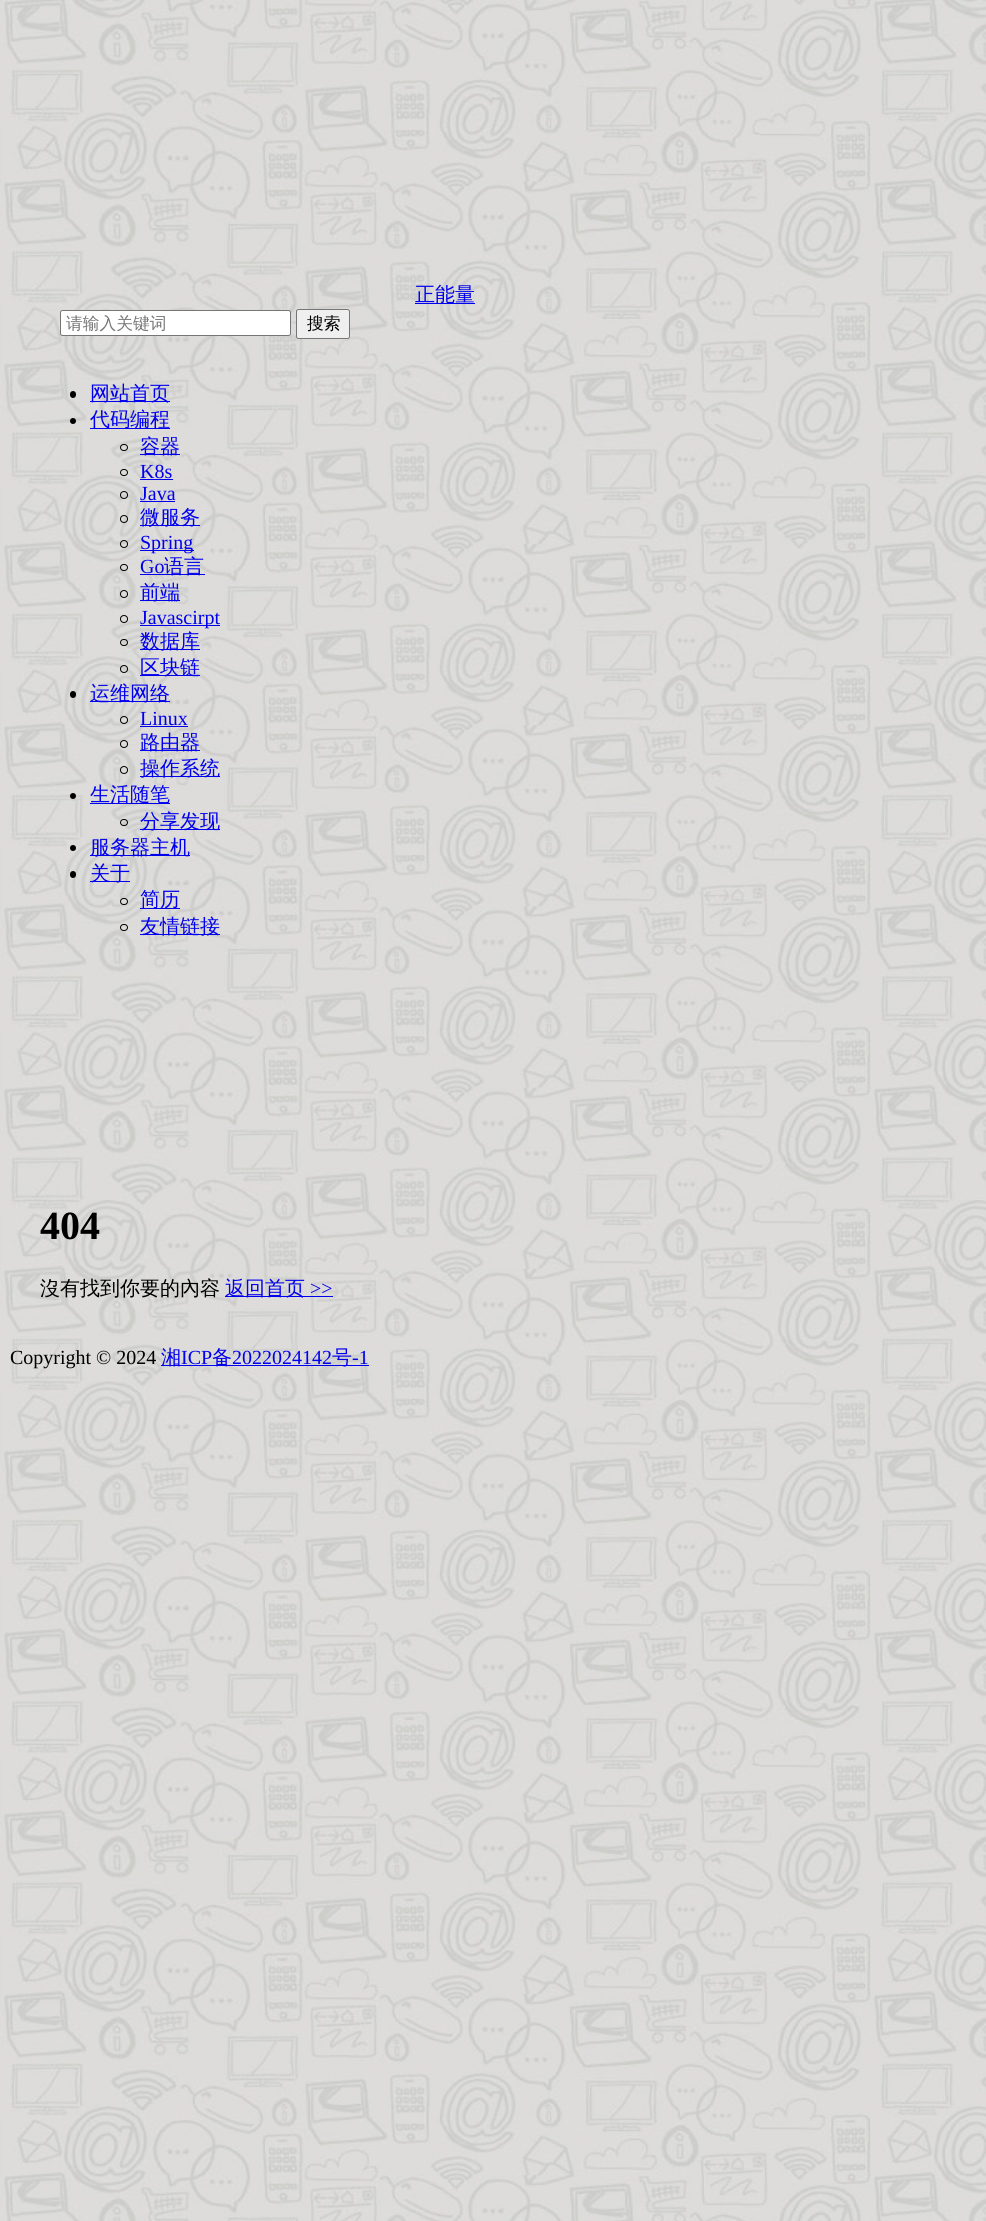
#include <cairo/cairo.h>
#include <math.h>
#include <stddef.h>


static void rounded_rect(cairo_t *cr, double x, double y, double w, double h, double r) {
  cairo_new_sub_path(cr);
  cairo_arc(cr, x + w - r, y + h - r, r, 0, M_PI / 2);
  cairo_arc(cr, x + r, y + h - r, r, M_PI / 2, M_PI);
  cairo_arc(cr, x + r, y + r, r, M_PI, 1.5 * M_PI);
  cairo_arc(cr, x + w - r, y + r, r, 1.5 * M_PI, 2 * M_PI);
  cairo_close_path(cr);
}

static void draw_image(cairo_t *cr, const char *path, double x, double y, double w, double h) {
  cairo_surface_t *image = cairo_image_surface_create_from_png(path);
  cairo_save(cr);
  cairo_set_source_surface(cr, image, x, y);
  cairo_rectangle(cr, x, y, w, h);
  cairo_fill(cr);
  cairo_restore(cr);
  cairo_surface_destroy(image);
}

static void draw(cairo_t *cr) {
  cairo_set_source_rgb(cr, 1, 1, 1);
  cairo_paint(cr);
  draw_image(cr, "images/1.png", 0, 0, 986, 2221);
  cairo_set_source_rgb(cr, 0, 0, 238 / 255.0);
  cairo_rectangle(cr, 415, 303, 60, 1);
  cairo_fill(cr);
  cairo_set_source_rgb(cr, 1, 1, 1);
  rounded_rect(cr, 60.5, 310.5, 230, 25, 2);
  cairo_fill_preserve(cr);
  cairo_set_source_rgb(cr, 118 / 255.0, 118 / 255.0, 118 / 255.0);
  cairo_set_line_width(cr, 1);
  cairo_stroke(cr);
  cairo_set_source_rgb(cr, 239 / 255.0, 239 / 255.0, 239 / 255.0);
  rounded_rect(cr, 296.5, 309.5, 53, 29, 2);
  cairo_fill_preserve(cr);
  cairo_set_source_rgb(cr, 118 / 255.0, 118 / 255.0, 118 / 255.0);
  cairo_stroke(cr);
  cairo_set_source_rgb(cr, 0, 0, 0);
  rounded_rect(cr, 70, 391, 6, 7, 3);
  cairo_fill(cr);
  cairo_set_source_rgb(cr, 0, 0, 238 / 255.0);
  cairo_rectangle(cr, 90, 401, 80, 1);
  cairo_fill(cr);
  cairo_set_source_rgb(cr, 0, 0, 0);
  cairo_arc(cr, 73, 421, 3, 0, 2 * M_PI);
  cairo_fill(cr);
  cairo_set_source_rgb(cr, 0, 0, 238 / 255.0);
  cairo_rectangle(cr, 90, 428, 80, 1);
  cairo_fill(cr);
  rounded_rect(cr, 120.5, 444.5, 7, 6, 3);
  cairo_set_source_rgb(cr, 0, 0, 0);
  cairo_stroke(cr);
  cairo_set_source_rgb(cr, 0, 0, 238 / 255.0);
  cairo_rectangle(cr, 140, 454, 40, 1);
  cairo_fill(cr);
  rounded_rect(cr, 120.5, 469.5, 7, 6, 3);
  cairo_set_source_rgb(cr, 0, 0, 0);
  cairo_stroke(cr);
  cairo_set_source_rgb(cr, 0, 0, 238 / 255.0);
  cairo_rectangle(cr, 140, 479, 33, 1);
  cairo_fill(cr);
  cairo_arc(cr, 124, 495, 3.5, 0, 2 * M_PI);
  cairo_set_source_rgb(cr, 0, 0, 0);
  cairo_stroke(cr);
  cairo_set_source_rgb(cr, 0, 0, 238 / 255.0);
  cairo_rectangle(cr, 140, 501, 35, 1);
  cairo_fill(cr);
  cairo_arc(cr, 124, 519, 3.5, 0, 2 * M_PI);
  cairo_set_source_rgb(cr, 0, 0, 0);
  cairo_stroke(cr);
  cairo_set_source_rgb(cr, 0, 0, 238 / 255.0);
  cairo_rectangle(cr, 140, 525, 60, 1);
  cairo_fill(cr);
  cairo_arc(cr, 124, 544, 3.5, 0, 2 * M_PI);
  cairo_set_source_rgb(cr, 0, 0, 0);
  cairo_stroke(cr);
  cairo_set_source_rgb(cr, 0, 0, 238 / 255.0);
  cairo_rectangle(cr, 140, 550, 54, 1);
  cairo_fill(cr);
  rounded_rect(cr, 120.5, 564.5, 7, 6, 3);
  cairo_set_source_rgb(cr, 0, 0, 0);
  cairo_stroke(cr);
  cairo_set_source_rgb(cr, 0, 0, 238 / 255.0);
  cairo_rectangle(cr, 140, 574, 65, 1);
  cairo_fill(cr);
  cairo_arc(cr, 124, 594, 3.5, 0, 2 * M_PI);
  cairo_set_source_rgb(cr, 0, 0, 0);
  cairo_stroke(cr);
  cairo_set_source_rgb(cr, 0, 0, 238 / 255.0);
  cairo_rectangle(cr, 140, 600, 40, 1);
  cairo_fill(cr);
  cairo_arc(cr, 124, 619, 3.5, 0, 2 * M_PI);
  cairo_set_source_rgb(cr, 0, 0, 0);
  cairo_stroke(cr);
  cairo_set_source_rgb(cr, 0, 0, 238 / 255.0);
  cairo_rectangle(cr, 140, 625, 80, 1);
  cairo_fill(cr);
  rounded_rect(cr, 120.5, 639.5, 7, 6, 3);
  cairo_set_source_rgb(cr, 0, 0, 0);
  cairo_stroke(cr);
  cairo_set_source_rgb(cr, 0, 0, 238 / 255.0);
  cairo_rectangle(cr, 140, 649, 60, 1);
  cairo_fill(cr);
  cairo_arc(cr, 124, 669, 3.5, 0, 2 * M_PI);
  cairo_set_source_rgb(cr, 0, 0, 0);
  cairo_stroke(cr);
  cairo_set_source_rgb(cr, 0, 0, 238 / 255.0);
  cairo_rectangle(cr, 140, 675, 60, 1);
  cairo_fill(cr);
  cairo_set_source_rgb(cr, 0, 0, 0);
  rounded_rect(cr, 70, 691, 6, 7, 3);
  cairo_fill(cr);
  cairo_set_source_rgb(cr, 0, 0, 238 / 255.0);
  cairo_rectangle(cr, 90, 701, 80, 1);
  cairo_fill(cr);
  cairo_arc(cr, 124, 720, 3.5, 0, 2 * M_PI);
  cairo_set_source_rgb(cr, 0, 0, 0);
  cairo_stroke(cr);
  cairo_set_source_rgb(cr, 0, 0, 238 / 255.0);
  cairo_rectangle(cr, 140, 726, 48, 1);
  cairo_fill(cr);
  cairo_arc(cr, 124, 744, 3.5, 0, 2 * M_PI);
  cairo_set_source_rgb(cr, 0, 0, 0);
  cairo_stroke(cr);
  cairo_set_source_rgb(cr, 0, 0, 238 / 255.0);
  cairo_rectangle(cr, 140, 750, 60, 1);
  cairo_fill(cr);
  cairo_arc(cr, 124, 770, 3.5, 0, 2 * M_PI);
  cairo_set_source_rgb(cr, 0, 0, 0);
  cairo_stroke(cr);
  cairo_set_source_rgb(cr, 0, 0, 238 / 255.0);
  cairo_rectangle(cr, 140, 776, 80, 1);
  cairo_fill(cr);
  cairo_set_source_rgb(cr, 0, 0, 0);
  cairo_arc(cr, 73, 796, 3, 0, 2 * M_PI);
  cairo_fill(cr);
  cairo_set_source_rgb(cr, 0, 0, 238 / 255.0);
  cairo_rectangle(cr, 90, 803, 80, 1);
  cairo_fill(cr);
  rounded_rect(cr, 120.5, 819.5, 7, 6, 3);
  cairo_set_source_rgb(cr, 0, 0, 0);
  cairo_stroke(cr);
  cairo_set_source_rgb(cr, 0, 0, 238 / 255.0);
  cairo_rectangle(cr, 140, 829, 80, 1);
  cairo_fill(cr);
  cairo_set_source_rgb(cr, 0, 0, 0);
  cairo_arc(cr, 73, 848, 3, 0, 2 * M_PI);
  cairo_fill(cr);
  cairo_set_source_rgb(cr, 0, 0, 238 / 255.0);
  cairo_rectangle(cr, 90, 855, 100, 1);
  cairo_fill(cr);
  cairo_set_source_rgb(cr, 0, 0, 0);
  rounded_rect(cr, 70, 871, 6, 7, 3);
  cairo_fill(cr);
  cairo_set_source_rgb(cr, 0, 0, 238 / 255.0);
  cairo_rectangle(cr, 90, 881, 40, 1);
  cairo_fill(cr);
  rounded_rect(cr, 120.5, 898.5, 7, 6, 3);
  cairo_set_source_rgb(cr, 0, 0, 0);
  cairo_stroke(cr);
  cairo_set_source_rgb(cr, 0, 0, 238 / 255.0);
  cairo_rectangle(cr, 140, 908, 40, 1);
  cairo_fill(cr);
  rounded_rect(cr, 120.5, 924.5, 7, 6, 3);
  cairo_set_source_rgb(cr, 0, 0, 0);
  cairo_stroke(cr);
  cairo_set_source_rgb(cr, 0, 0, 238 / 255.0);
  cairo_rectangle(cr, 140, 934, 80, 1);
  cairo_fill(cr);
  cairo_rectangle(cr, 225, 1296, 108, 1);
  cairo_fill(cr);
  cairo_rectangle(cr, 161, 1365, 208, 1);
  cairo_fill(cr);
  cairo_select_font_face(cr, "WenQuanYi Zen Hei Medium", CAIRO_FONT_SLANT_NORMAL, CAIRO_FONT_WEIGHT_NORMAL);
  cairo_set_font_size(cr, 20);
  cairo_move_to(cr, 415, 301);
  cairo_show_text(cr, "正能量");
  cairo_set_font_size(cr, 16.75);
  cairo_set_source_rgb(cr, 117 / 255.0, 117 / 255.0, 117 / 255.0);
  cairo_move_to(cr, 66, 329);
  cairo_show_text(cr, "请输入关键词");
  cairo_set_source_rgb(cr, 0, 0, 0);
  cairo_move_to(cr, 307, 329);
  cairo_show_text(cr, "搜索");
  cairo_set_font_size(cr, 20);
  cairo_set_source_rgb(cr, 0, 0, 238 / 255.0);
  cairo_move_to(cr, 90, 400);
  cairo_show_text(cr, "网站首页");
  cairo_move_to(cr, 90, 426);
  cairo_show_text(cr, "代码编程");
  cairo_move_to(cr, 140, 453);
  cairo_show_text(cr, "容器");
  cairo_select_font_face(cr, "Liberation Serif", CAIRO_FONT_SLANT_NORMAL, CAIRO_FONT_WEIGHT_NORMAL);
  cairo_move_to(cr, 140, 478);
  cairo_show_text(cr, "K8s");
  cairo_move_to(cr, 140, 500);
  cairo_show_text(cr, "Java");
  cairo_select_font_face(cr, "WenQuanYi Zen Hei Medium", CAIRO_FONT_SLANT_NORMAL, CAIRO_FONT_WEIGHT_NORMAL);
  cairo_move_to(cr, 140, 524);
  cairo_show_text(cr, "微服务");
  cairo_select_font_face(cr, "Liberation Serif", CAIRO_FONT_SLANT_NORMAL, CAIRO_FONT_WEIGHT_NORMAL);
  cairo_move_to(cr, 140, 549);
  cairo_show_text(cr, "Spring");
  cairo_move_to(cr, 140, 573);
  cairo_show_text(cr, "Go");
  cairo_select_font_face(cr, "WenQuanYi Zen Hei Medium", CAIRO_FONT_SLANT_NORMAL, CAIRO_FONT_WEIGHT_NORMAL);
  cairo_move_to(cr, 164, 573);
  cairo_show_text(cr, "语言");
  cairo_move_to(cr, 140, 599);
  cairo_show_text(cr, "前端");
  cairo_select_font_face(cr, "Liberation Serif", CAIRO_FONT_SLANT_NORMAL, CAIRO_FONT_WEIGHT_NORMAL);
  cairo_move_to(cr, 140, 624);
  cairo_show_text(cr, "Javascirpt");
  cairo_select_font_face(cr, "WenQuanYi Zen Hei Medium", CAIRO_FONT_SLANT_NORMAL, CAIRO_FONT_WEIGHT_NORMAL);
  cairo_move_to(cr, 140, 648);
  cairo_show_text(cr, "数据库");
  cairo_move_to(cr, 140, 674);
  cairo_show_text(cr, "区块链");
  cairo_move_to(cr, 90, 700);
  cairo_show_text(cr, "运维网络");
  cairo_select_font_face(cr, "Liberation Serif", CAIRO_FONT_SLANT_NORMAL, CAIRO_FONT_WEIGHT_NORMAL);
  cairo_move_to(cr, 140, 725);
  cairo_show_text(cr, "Linux");
  cairo_select_font_face(cr, "WenQuanYi Zen Hei Medium", CAIRO_FONT_SLANT_NORMAL, CAIRO_FONT_WEIGHT_NORMAL);
  cairo_move_to(cr, 140, 749);
  cairo_show_text(cr, "路由器");
  cairo_move_to(cr, 140, 775);
  cairo_show_text(cr, "操作系统");
  cairo_move_to(cr, 90, 801);
  cairo_show_text(cr, "生活随笔");
  cairo_move_to(cr, 140, 828);
  cairo_show_text(cr, "分享发现");
  cairo_move_to(cr, 90, 854);
  cairo_show_text(cr, "服务器主机");
  cairo_move_to(cr, 90, 880);
  cairo_show_text(cr, "关于");
  cairo_move_to(cr, 140, 906);
  cairo_show_text(cr, "简历");
  cairo_move_to(cr, 140, 933);
  cairo_show_text(cr, "友情链接");
  cairo_select_font_face(cr, "Liberation Serif", CAIRO_FONT_SLANT_NORMAL, CAIRO_FONT_WEIGHT_BOLD);
  cairo_set_font_size(cr, 40);
  cairo_set_source_rgb(cr, 0, 0, 0);
  cairo_move_to(cr, 40, 1239);
  cairo_show_text(cr, "404");
  cairo_select_font_face(cr, "WenQuanYi Zen Hei Medium", CAIRO_FONT_SLANT_NORMAL, CAIRO_FONT_WEIGHT_NORMAL);
  cairo_set_font_size(cr, 20);
  cairo_move_to(cr, 40, 1295);
  cairo_show_text(cr, "沒有找到你要的內容");
  cairo_set_source_rgb(cr, 0, 0, 238 / 255.0);
  cairo_move_to(cr, 225, 1295);
  cairo_show_text(cr, "返回首页");
  cairo_select_font_face(cr, "Liberation Serif", CAIRO_FONT_SLANT_NORMAL, CAIRO_FONT_WEIGHT_NORMAL);
  cairo_move_to(cr, 310, 1295);
  cairo_show_text(cr, ">>");
  cairo_set_source_rgb(cr, 0, 0, 0);
  cairo_move_to(cr, 10, 1364);
  cairo_show_text(cr, "Copyright © 2024");
  cairo_select_font_face(cr, "WenQuanYi Zen Hei Medium", CAIRO_FONT_SLANT_NORMAL, CAIRO_FONT_WEIGHT_NORMAL);
  cairo_set_source_rgb(cr, 0, 0, 238 / 255.0);
  cairo_move_to(cr, 161, 1364);
  cairo_show_text(cr, "湘");
  cairo_select_font_face(cr, "Liberation Serif", CAIRO_FONT_SLANT_NORMAL, CAIRO_FONT_WEIGHT_NORMAL);
  cairo_move_to(cr, 181, 1364);
  cairo_show_text(cr, "ICP");
  cairo_select_font_face(cr, "WenQuanYi Zen Hei Medium", CAIRO_FONT_SLANT_NORMAL, CAIRO_FONT_WEIGHT_NORMAL);
  cairo_move_to(cr, 212, 1364);
  cairo_show_text(cr, "备");
  cairo_select_font_face(cr, "Liberation Serif", CAIRO_FONT_SLANT_NORMAL, CAIRO_FONT_WEIGHT_NORMAL);
  cairo_move_to(cr, 232, 1364);
  cairo_show_text(cr, "2022024142");
  cairo_select_font_face(cr, "WenQuanYi Zen Hei Medium", CAIRO_FONT_SLANT_NORMAL, CAIRO_FONT_WEIGHT_NORMAL);
  cairo_move_to(cr, 332, 1364);
  cairo_show_text(cr, "号");
  cairo_select_font_face(cr, "Liberation Serif", CAIRO_FONT_SLANT_NORMAL, CAIRO_FONT_WEIGHT_NORMAL);
  cairo_move_to(cr, 352, 1364);
  cairo_show_text(cr, "-1");
}

int main(void) {
  cairo_surface_t *surface = cairo_image_surface_create(CAIRO_FORMAT_RGB24, 986, 2221);
  cairo_t *cr = cairo_create(surface);
  cairo_font_options_t *options = cairo_font_options_create();
  cairo_font_options_set_hint_metrics(options, CAIRO_HINT_METRICS_OFF);
  cairo_font_options_set_hint_style(options, CAIRO_HINT_STYLE_NONE);
  cairo_set_font_options(cr, options);
  cairo_set_miter_limit(cr, 4);
  draw(cr);
  cairo_surface_write_to_png(surface, "out.png");
  cairo_font_options_destroy(options);
  cairo_destroy(cr);
  cairo_surface_destroy(surface);
  return 0;
}
